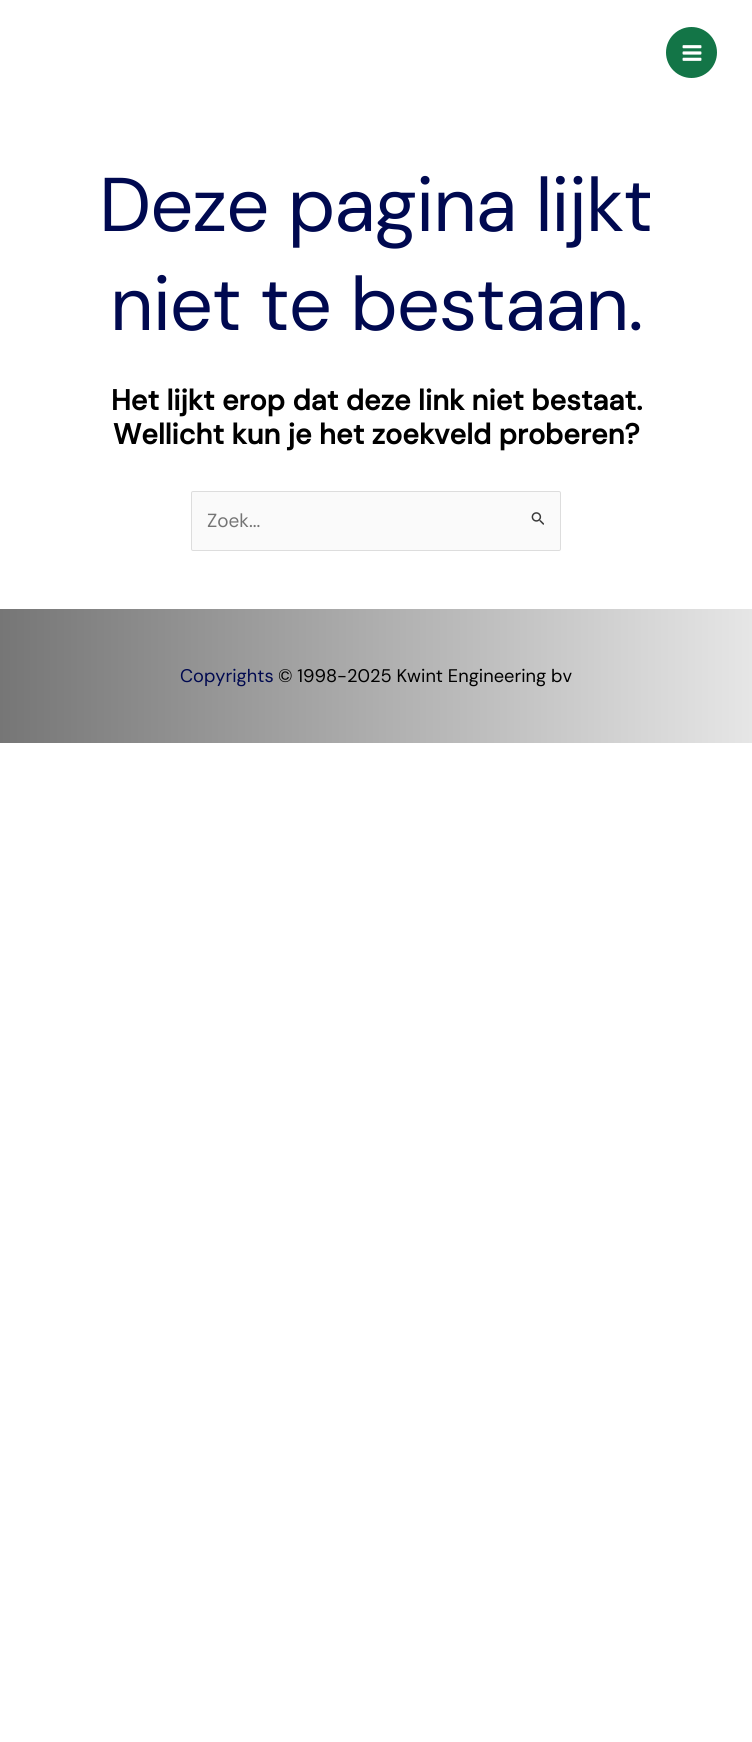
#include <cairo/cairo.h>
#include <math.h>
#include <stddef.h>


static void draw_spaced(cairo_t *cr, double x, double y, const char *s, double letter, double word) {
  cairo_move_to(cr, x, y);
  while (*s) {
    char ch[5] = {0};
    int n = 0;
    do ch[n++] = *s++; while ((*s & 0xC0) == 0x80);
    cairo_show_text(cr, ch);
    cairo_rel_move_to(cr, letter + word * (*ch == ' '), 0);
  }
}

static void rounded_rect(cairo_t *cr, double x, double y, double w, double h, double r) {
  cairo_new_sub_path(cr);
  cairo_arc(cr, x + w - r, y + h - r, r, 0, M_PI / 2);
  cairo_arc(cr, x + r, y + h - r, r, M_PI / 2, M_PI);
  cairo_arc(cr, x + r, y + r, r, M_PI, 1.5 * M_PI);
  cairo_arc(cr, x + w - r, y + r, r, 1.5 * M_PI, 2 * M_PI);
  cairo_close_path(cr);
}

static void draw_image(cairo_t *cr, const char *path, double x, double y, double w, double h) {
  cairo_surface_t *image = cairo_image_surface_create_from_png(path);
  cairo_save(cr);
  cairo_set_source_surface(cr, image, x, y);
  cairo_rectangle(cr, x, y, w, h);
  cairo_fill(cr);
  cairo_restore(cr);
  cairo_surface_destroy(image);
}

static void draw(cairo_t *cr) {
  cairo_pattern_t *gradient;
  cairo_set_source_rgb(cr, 1, 1, 1);
  cairo_paint(cr);
  cairo_set_source_rgb(cr, 19 / 255.0, 117 / 255.0, 71 / 255.0);
  cairo_arc(cr, 691.5, 52.5, 25.5, 0, 2 * M_PI);
  cairo_fill(cr);
  draw_image(cr, "images/1.png", 682, 45, 20, 16);
  cairo_set_source_rgb(cr, 250 / 255.0, 250 / 255.0, 250 / 255.0);
  rounded_rect(cr, 191.5, 491.5, 369, 59, 1.5);
  cairo_fill_preserve(cr);
  cairo_set_source_rgb(cr, 221 / 255.0, 221 / 255.0, 221 / 255.0);
  cairo_set_line_width(cr, 1);
  cairo_stroke(cr);
  draw_image(cr, "images/2.png", 531, 512, 13, 13);
  gradient = cairo_pattern_create_linear(0, 676, 752, 676);
  cairo_pattern_add_color_stop_rgba(gradient, 0, 118 / 255.0, 118 / 255.0, 118 / 255.0, 1);
  cairo_pattern_add_color_stop_rgba(gradient, 1, 230 / 255.0, 230 / 255.0, 230 / 255.0, 1);
  cairo_set_source(cr, gradient);
  cairo_pattern_destroy(gradient);
  cairo_rectangle(cr, 0, 609, 752, 134);
  cairo_fill(cr);
  cairo_select_font_face(cr, "DM Sans", CAIRO_FONT_SLANT_NORMAL, CAIRO_FONT_WEIGHT_NORMAL);
  cairo_set_font_size(cr, 76);
  cairo_set_source_rgb(cr, 0, 9 / 255.0, 80 / 255.0);
  draw_spaced(cr, 99, 231, "Deze pagina lijkt", -1, 0);
  draw_spaced(cr, 110, 330, "niet te bestaan.", -1, 0);
  cairo_select_font_face(cr, "DM Sans", CAIRO_FONT_SLANT_NORMAL, CAIRO_FONT_WEIGHT_BOLD);
  cairo_set_font_size(cr, 28.75);
  cairo_set_source_rgb(cr, 0, 0, 0);
  cairo_move_to(cr, 111, 410);
  cairo_show_text(cr, "Het lijkt erop dat deze link niet bestaat.");
  cairo_move_to(cr, 113, 444);
  cairo_show_text(cr, "Wellicht kun je het zoekveld proberen?");
  cairo_select_font_face(cr, "DM Sans", CAIRO_FONT_SLANT_NORMAL, CAIRO_FONT_WEIGHT_NORMAL);
  cairo_set_font_size(cr, 19);
  cairo_set_source_rgb(cr, 117 / 255.0, 117 / 255.0, 117 / 255.0);
  cairo_move_to(cr, 207, 527);
  cairo_show_text(cr, "Zoek...");
  cairo_set_font_size(cr, 18.25);
  cairo_set_source_rgb(cr, 0, 9 / 255.0, 80 / 255.0);
  cairo_move_to(cr, 180, 682);
  cairo_show_text(cr, "Copyrights");
  cairo_set_source_rgb(cr, 0, 0, 0);
  cairo_move_to(cr, 278, 682);
  cairo_show_text(cr, "© 1998-2025 Kwint Engineering bv");
}

int main(void) {
  cairo_surface_t *surface = cairo_image_surface_create(CAIRO_FORMAT_RGB24, 752, 1742);
  cairo_t *cr = cairo_create(surface);
  cairo_font_options_t *options = cairo_font_options_create();
  cairo_font_options_set_hint_metrics(options, CAIRO_HINT_METRICS_OFF);
  cairo_font_options_set_hint_style(options, CAIRO_HINT_STYLE_NONE);
  cairo_set_font_options(cr, options);
  cairo_set_miter_limit(cr, 4);
  draw(cr);
  cairo_surface_write_to_png(surface, "out.png");
  cairo_font_options_destroy(options);
  cairo_destroy(cr);
  cairo_surface_destroy(surface);
  return 0;
}
